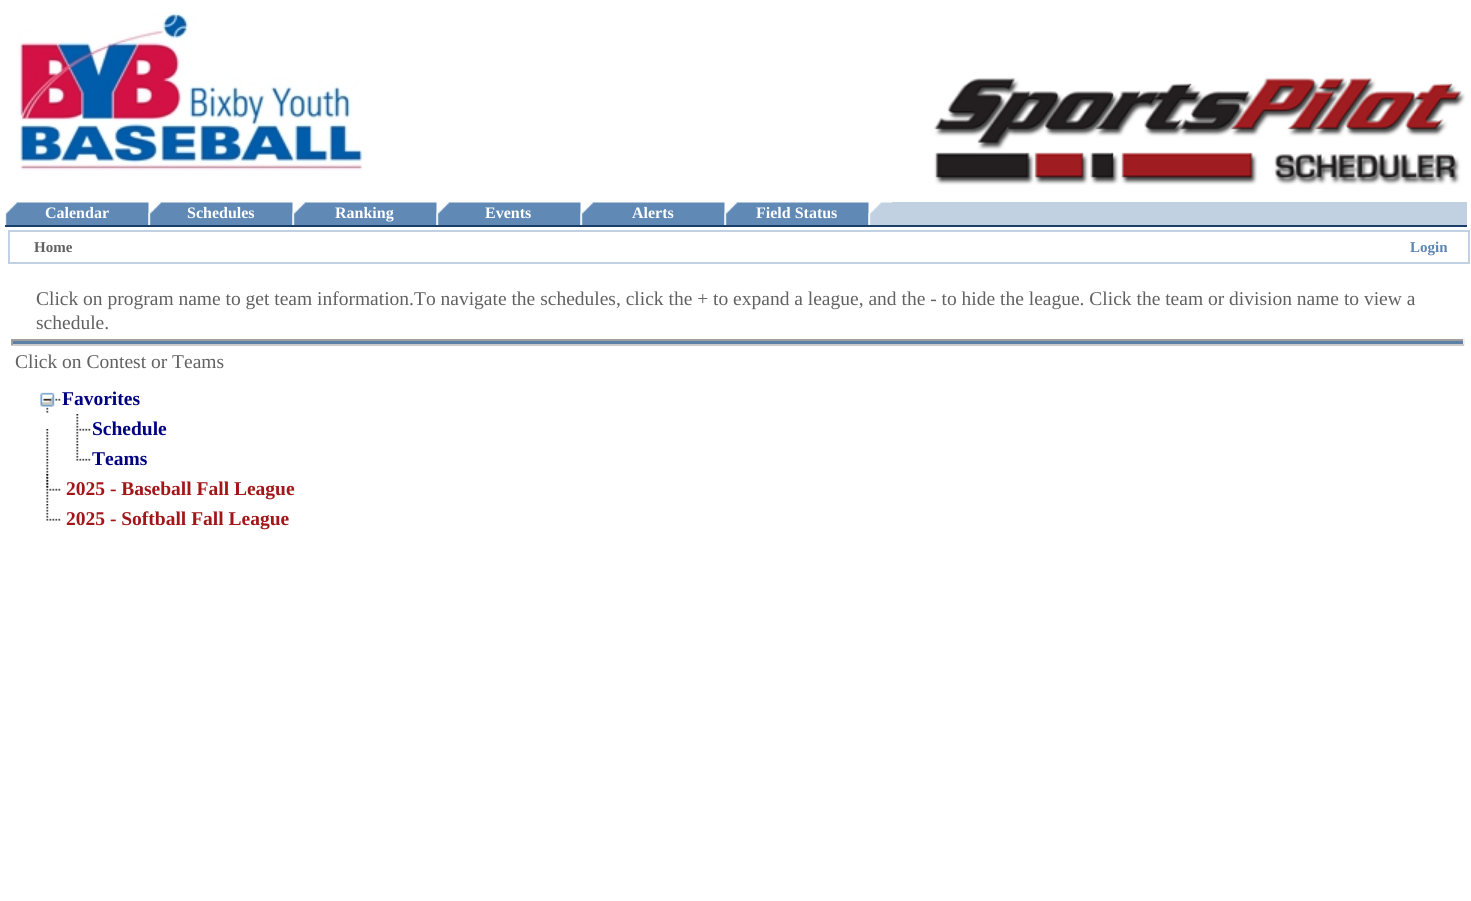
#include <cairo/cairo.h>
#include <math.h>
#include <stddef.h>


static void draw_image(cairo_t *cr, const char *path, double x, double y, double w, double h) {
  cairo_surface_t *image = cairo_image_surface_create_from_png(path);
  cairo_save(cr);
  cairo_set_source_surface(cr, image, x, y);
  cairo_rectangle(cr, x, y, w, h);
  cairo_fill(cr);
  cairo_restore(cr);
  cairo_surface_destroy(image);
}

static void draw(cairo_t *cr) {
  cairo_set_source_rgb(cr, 1, 1, 1);
  cairo_paint(cr);
  draw_image(cr, "images/1.png", 18, 12, 345, 159);
  draw_image(cr, "images/2.png", 934, 77, 532, 108);
  cairo_set_source_rgb(cr, 28 / 255.0, 63 / 255.0, 103 / 255.0);
  cairo_rectangle(cr, 5, 225, 1462, 2);
  cairo_fill(cr);
  draw_image(cr, "images/3.png", 5, 202, 144, 23);
  draw_image(cr, "images/4.png", 148, 202, 145, 23);
  draw_image(cr, "images/5.png", 292, 202, 145, 23);
  draw_image(cr, "images/5.png", 436, 202, 145, 23);
  draw_image(cr, "images/5.png", 580, 202, 145, 23);
  draw_image(cr, "images/5.png", 724, 202, 145, 23);
  draw_image(cr, "images/6.png", 868, 202, 24, 23);
  cairo_set_source_rgb(cr, 194 / 255.0, 209 / 255.0, 226 / 255.0);
  cairo_rectangle(cr, 892, 202, 575, 23);
  cairo_fill(cr);
  cairo_rectangle(cr, 9, 231, 1460, 32);
  cairo_stroke(cr);
  cairo_set_source_rgb(cr, 93 / 255.0, 128 / 255.0, 166 / 255.0);
  cairo_rectangle(cr, 11, 341, 1453, 3);
  cairo_fill(cr);
  cairo_set_source_rgb(cr, 159 / 255.0, 159 / 255.0, 159 / 255.0);
  cairo_rectangle(cr, 11, 339, 1453, 2);
  cairo_fill(cr);
  cairo_set_source_rgb(cr, 238 / 255.0, 238 / 255.0, 238 / 255.0);
  cairo_rectangle(cr, 1463, 339, 2, 6);
  cairo_fill(cr);
  cairo_set_source_rgb(cr, 204 / 255.0, 204 / 255.0, 204 / 255.0);
  cairo_rectangle(cr, 11, 344, 1453, 2);
  cairo_fill(cr);
  cairo_set_source_rgb(cr, 159 / 255.0, 159 / 255.0, 159 / 255.0);
  cairo_rectangle(cr, 11, 339, 2, 6);
  cairo_fill(cr);
  draw_image(cr, "images/7.png", 40, 392, 21, 21);
  draw_image(cr, "images/8.png", 46, 429, 3, 29);
  draw_image(cr, "images/9.png", 76, 414, 15, 29);
  draw_image(cr, "images/8.png", 46, 459, 3, 29);
  draw_image(cr, "images/10.png", 76, 444, 15, 17);
  draw_image(cr, "images/11.png", 46, 474, 15, 29);
  draw_image(cr, "images/10.png", 46, 504, 15, 17);
  cairo_select_font_face(cr, "Liberation Serif", CAIRO_FONT_SLANT_NORMAL, CAIRO_FONT_WEIGHT_BOLD);
  cairo_set_font_size(cr, 16);
  cairo_set_source_rgb(cr, 1, 1, 1);
  cairo_move_to(cr, 45, 218);
  cairo_show_text(cr, "Calendar");
  cairo_move_to(cr, 187, 218);
  cairo_show_text(cr, "Schedules");
  cairo_move_to(cr, 335, 218);
  cairo_show_text(cr, "Ranking");
  cairo_move_to(cr, 485, 218);
  cairo_show_text(cr, "Events");
  cairo_move_to(cr, 632, 218);
  cairo_show_text(cr, "Alerts");
  cairo_move_to(cr, 756, 218);
  cairo_show_text(cr, "Field Status");
  cairo_set_font_size(cr, 15);
  cairo_set_source_rgb(cr, 97 / 255.0, 97 / 255.0, 97 / 255.0);
  cairo_move_to(cr, 34, 252);
  cairo_show_text(cr, "Home");
  cairo_set_source_rgb(cr, 91 / 255.0, 133 / 255.0, 179 / 255.0);
  cairo_move_to(cr, 1410, 252);
  cairo_show_text(cr, "Login");
  cairo_select_font_face(cr, "Liberation Serif", CAIRO_FONT_SLANT_NORMAL, CAIRO_FONT_WEIGHT_NORMAL);
  cairo_set_font_size(cr, 19.5);
  cairo_set_source_rgb(cr, 97 / 255.0, 97 / 255.0, 97 / 255.0);
  cairo_move_to(cr, 36, 305);
  cairo_show_text(cr, "Click on program name to get team information.To navigate the schedules, click the + to expand a league, and the - to hide the league. Click the team or division name to view a");
  cairo_move_to(cr, 36, 329);
  cairo_show_text(cr, "schedule.");
  cairo_move_to(cr, 15, 368);
  cairo_show_text(cr, "Click on Contest or Teams");
  cairo_select_font_face(cr, "Liberation Serif", CAIRO_FONT_SLANT_NORMAL, CAIRO_FONT_WEIGHT_BOLD);
  cairo_set_source_rgb(cr, 0, 0, 128 / 255.0);
  cairo_move_to(cr, 62, 405);
  cairo_show_text(cr, "Favorites");
  cairo_move_to(cr, 92, 435);
  cairo_show_text(cr, "Schedule");
  cairo_move_to(cr, 92, 465);
  cairo_show_text(cr, "Teams");
  cairo_set_source_rgb(cr, 162 / 255.0, 22 / 255.0, 25 / 255.0);
  cairo_move_to(cr, 66, 495);
  cairo_show_text(cr, "2025 - Baseball Fall League");
  cairo_move_to(cr, 66, 525);
  cairo_show_text(cr, "2025 - Softball Fall League");
}

int main(void) {
  cairo_surface_t *surface = cairo_image_surface_create(CAIRO_FORMAT_RGB24, 1471, 901);
  cairo_t *cr = cairo_create(surface);
  cairo_font_options_t *options = cairo_font_options_create();
  cairo_font_options_set_hint_metrics(options, CAIRO_HINT_METRICS_OFF);
  cairo_font_options_set_hint_style(options, CAIRO_HINT_STYLE_NONE);
  cairo_set_font_options(cr, options);
  cairo_set_miter_limit(cr, 4);
  draw(cr);
  cairo_surface_write_to_png(surface, "out.png");
  cairo_font_options_destroy(options);
  cairo_destroy(cr);
  cairo_surface_destroy(surface);
  return 0;
}
